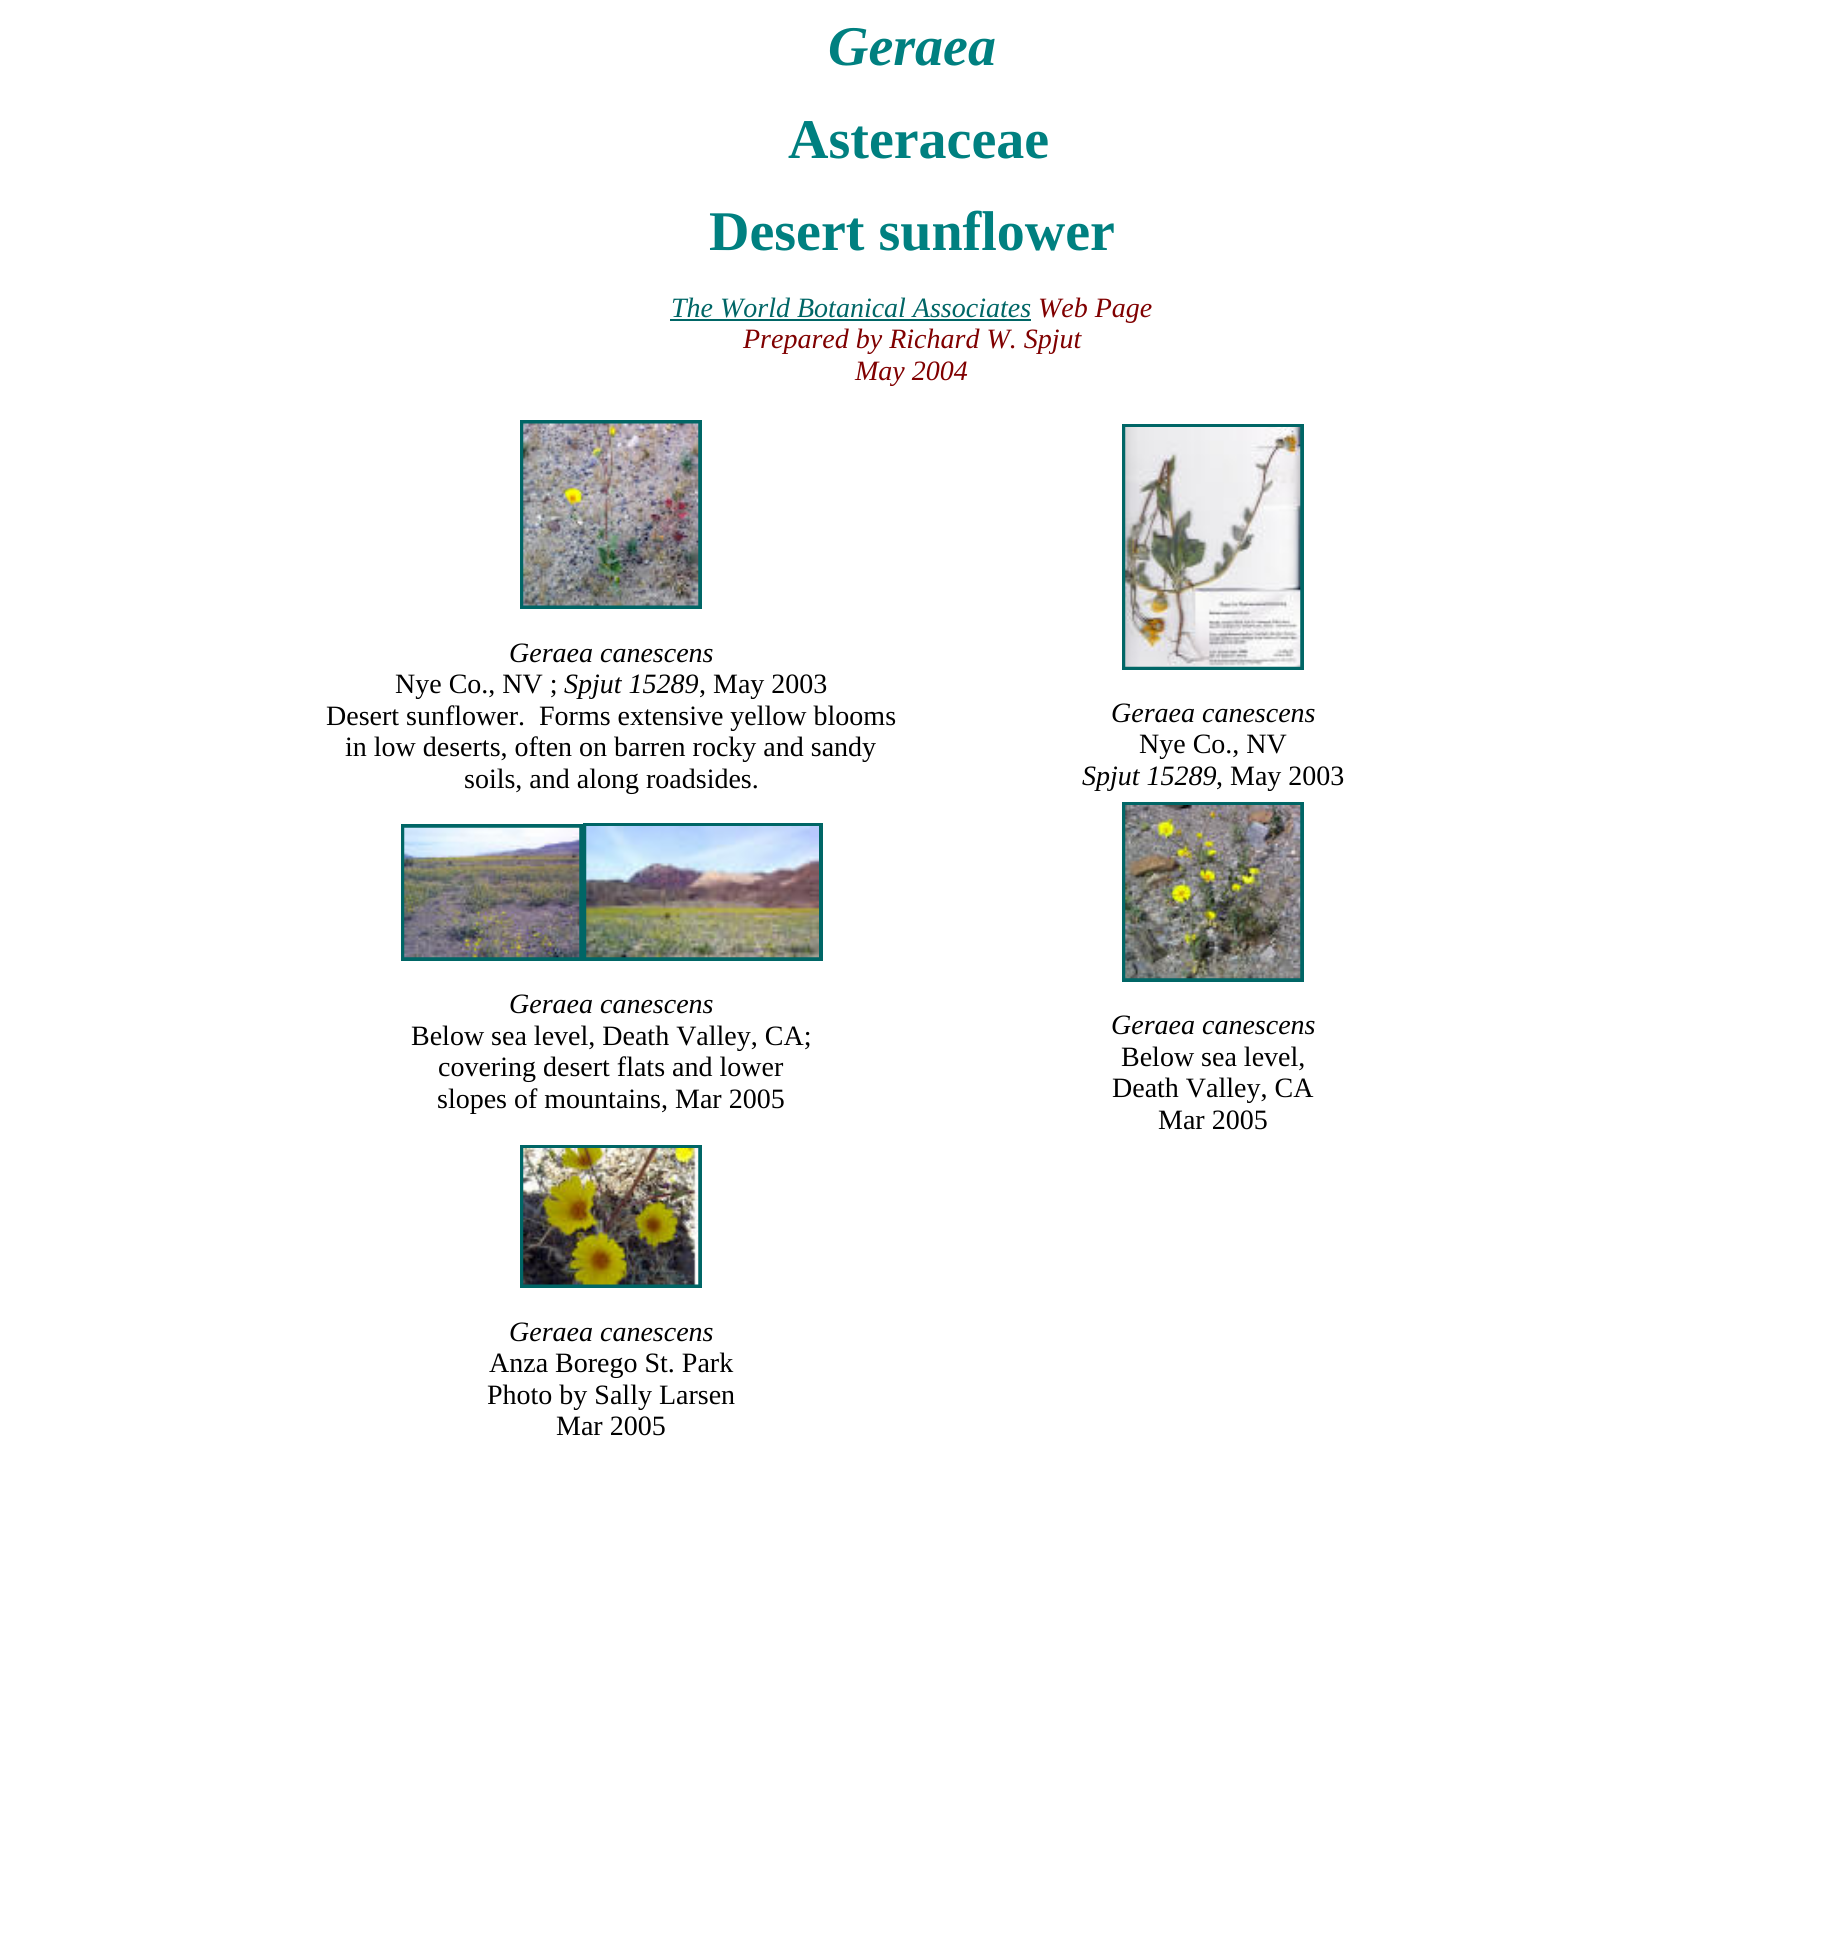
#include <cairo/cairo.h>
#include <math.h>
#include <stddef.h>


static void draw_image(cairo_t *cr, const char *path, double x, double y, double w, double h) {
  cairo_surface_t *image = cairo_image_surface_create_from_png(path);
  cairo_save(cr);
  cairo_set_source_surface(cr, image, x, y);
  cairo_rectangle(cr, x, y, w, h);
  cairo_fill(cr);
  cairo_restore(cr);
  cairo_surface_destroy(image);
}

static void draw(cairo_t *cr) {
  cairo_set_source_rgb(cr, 1, 1, 1);
  cairo_paint(cr);
  cairo_set_source_rgb(cr, 0, 102 / 255.0, 102 / 255.0);
  cairo_rectangle(cr, 670, 319, 361, 2);
  cairo_fill(cr);
  cairo_rectangle(cr, 522, 422, 178, 185);
  cairo_set_line_width(cr, 4);
  cairo_stroke(cr);
  draw_image(cr, "images/1.png", 523, 423, 176, 183);
  cairo_rectangle(cr, 1124, 426, 178, 242);
  cairo_stroke(cr);
  draw_image(cr, "images/2.png", 1125, 427, 176, 240);
  cairo_rectangle(cr, 403, 826, 178, 133);
  cairo_stroke(cr);
  cairo_rectangle(cr, 585, 825, 236, 134);
  cairo_stroke(cr);
  draw_image(cr, "images/3.png", 404, 827, 176, 131);
  draw_image(cr, "images/4.png", 586, 826, 233, 132);
  cairo_rectangle(cr, 1124, 804, 178, 176);
  cairo_stroke(cr);
  draw_image(cr, "images/5.png", 1125, 805, 176, 174);
  cairo_rectangle(cr, 522, 1147, 178, 139);
  cairo_stroke(cr);
  draw_image(cr, "images/6.png", 523, 1148, 176, 137);
  cairo_select_font_face(cr, "Liberation Serif", CAIRO_FONT_SLANT_ITALIC, CAIRO_FONT_WEIGHT_BOLD);
  cairo_set_font_size(cr, 56);
  cairo_set_source_rgb(cr, 0, 128 / 255.0, 128 / 255.0);
  cairo_move_to(cr, 828, 65);
  cairo_show_text(cr, "Geraea");
  cairo_select_font_face(cr, "Liberation Serif", CAIRO_FONT_SLANT_NORMAL, CAIRO_FONT_WEIGHT_BOLD);
  cairo_move_to(cr, 788, 158);
  cairo_show_text(cr, "Asteraceae");
  cairo_move_to(cr, 709, 250);
  cairo_show_text(cr, "Desert sunflower");
  cairo_select_font_face(cr, "Liberation Serif", CAIRO_FONT_SLANT_ITALIC, CAIRO_FONT_WEIGHT_NORMAL);
  cairo_set_font_size(cr, 28);
  cairo_set_source_rgb(cr, 0, 102 / 255.0, 102 / 255.0);
  cairo_move_to(cr, 671, 317);
  cairo_show_text(cr, "The World Botanical Associates");
  cairo_set_source_rgb(cr, 128 / 255.0, 0, 0);
  cairo_move_to(cr, 1038, 317);
  cairo_show_text(cr, "Web Page");
  cairo_move_to(cr, 743, 348);
  cairo_show_text(cr, "Prepared by Richard W. Spjut");
  cairo_move_to(cr, 855, 380);
  cairo_show_text(cr, "May 2004");
  cairo_set_source_rgb(cr, 0, 0, 0);
  cairo_move_to(cr, 509, 662);
  cairo_show_text(cr, "Geraea canescens");
  cairo_select_font_face(cr, "Liberation Serif", CAIRO_FONT_SLANT_NORMAL, CAIRO_FONT_WEIGHT_NORMAL);
  cairo_move_to(cr, 395, 693);
  cairo_show_text(cr, "Nye Co., NV ;");
  cairo_select_font_face(cr, "Liberation Serif", CAIRO_FONT_SLANT_ITALIC, CAIRO_FONT_WEIGHT_NORMAL);
  cairo_move_to(cr, 564, 693);
  cairo_show_text(cr, "Spjut 15289");
  cairo_select_font_face(cr, "Liberation Serif", CAIRO_FONT_SLANT_NORMAL, CAIRO_FONT_WEIGHT_NORMAL);
  cairo_move_to(cr, 699, 693);
  cairo_show_text(cr, ", May 2003");
  cairo_move_to(cr, 326, 725);
  cairo_show_text(cr, "Desert sunflower.  Forms extensive yellow blooms");
  cairo_move_to(cr, 345, 756);
  cairo_show_text(cr, "in low deserts, often on barren rocky and sandy");
  cairo_move_to(cr, 464, 788);
  cairo_show_text(cr, "soils, and along roadsides.");
  cairo_select_font_face(cr, "Liberation Serif", CAIRO_FONT_SLANT_ITALIC, CAIRO_FONT_WEIGHT_NORMAL);
  cairo_move_to(cr, 1111, 722);
  cairo_show_text(cr, "Geraea canescens");
  cairo_select_font_face(cr, "Liberation Serif", CAIRO_FONT_SLANT_NORMAL, CAIRO_FONT_WEIGHT_NORMAL);
  cairo_move_to(cr, 1139, 753);
  cairo_show_text(cr, "Nye Co., NV");
  cairo_select_font_face(cr, "Liberation Serif", CAIRO_FONT_SLANT_ITALIC, CAIRO_FONT_WEIGHT_NORMAL);
  cairo_move_to(cr, 1082, 785);
  cairo_show_text(cr, "Spjut 15289");
  cairo_select_font_face(cr, "Liberation Serif", CAIRO_FONT_SLANT_NORMAL, CAIRO_FONT_WEIGHT_NORMAL);
  cairo_move_to(cr, 1216, 785);
  cairo_show_text(cr, ", May 2003");
  cairo_select_font_face(cr, "Liberation Serif", CAIRO_FONT_SLANT_ITALIC, CAIRO_FONT_WEIGHT_NORMAL);
  cairo_move_to(cr, 509, 1013);
  cairo_show_text(cr, "Geraea canescens");
  cairo_select_font_face(cr, "Liberation Serif", CAIRO_FONT_SLANT_NORMAL, CAIRO_FONT_WEIGHT_NORMAL);
  cairo_move_to(cr, 411, 1045);
  cairo_show_text(cr, "Below sea level, Death Valley, CA;");
  cairo_move_to(cr, 438, 1076);
  cairo_show_text(cr, "covering desert flats and lower");
  cairo_move_to(cr, 437, 1108);
  cairo_show_text(cr, "slopes of mountains, Mar 2005");
  cairo_select_font_face(cr, "Liberation Serif", CAIRO_FONT_SLANT_ITALIC, CAIRO_FONT_WEIGHT_NORMAL);
  cairo_move_to(cr, 1111, 1034);
  cairo_show_text(cr, "Geraea canescens");
  cairo_select_font_face(cr, "Liberation Serif", CAIRO_FONT_SLANT_NORMAL, CAIRO_FONT_WEIGHT_NORMAL);
  cairo_move_to(cr, 1121, 1066);
  cairo_show_text(cr, "Below sea level,");
  cairo_move_to(cr, 1112, 1097);
  cairo_show_text(cr, "Death Valley, CA");
  cairo_move_to(cr, 1158, 1129);
  cairo_show_text(cr, "Mar 2005");
  cairo_select_font_face(cr, "Liberation Serif", CAIRO_FONT_SLANT_ITALIC, CAIRO_FONT_WEIGHT_NORMAL);
  cairo_move_to(cr, 509, 1341);
  cairo_show_text(cr, "Geraea canescens");
  cairo_select_font_face(cr, "Liberation Serif", CAIRO_FONT_SLANT_NORMAL, CAIRO_FONT_WEIGHT_NORMAL);
  cairo_move_to(cr, 489, 1372);
  cairo_show_text(cr, "Anza Borego St. Park");
  cairo_move_to(cr, 487, 1404);
  cairo_show_text(cr, "Photo by Sally Larsen");
  cairo_move_to(cr, 556, 1435);
  cairo_show_text(cr, "Mar 2005");
}

int main(void) {
  cairo_surface_t *surface = cairo_image_surface_create(CAIRO_FORMAT_RGB24, 1822, 1960);
  cairo_t *cr = cairo_create(surface);
  cairo_font_options_t *options = cairo_font_options_create();
  cairo_font_options_set_hint_metrics(options, CAIRO_HINT_METRICS_OFF);
  cairo_font_options_set_hint_style(options, CAIRO_HINT_STYLE_NONE);
  cairo_set_font_options(cr, options);
  cairo_set_miter_limit(cr, 4);
  draw(cr);
  cairo_surface_write_to_png(surface, "out.png");
  cairo_font_options_destroy(options);
  cairo_destroy(cr);
  cairo_surface_destroy(surface);
  return 0;
}
